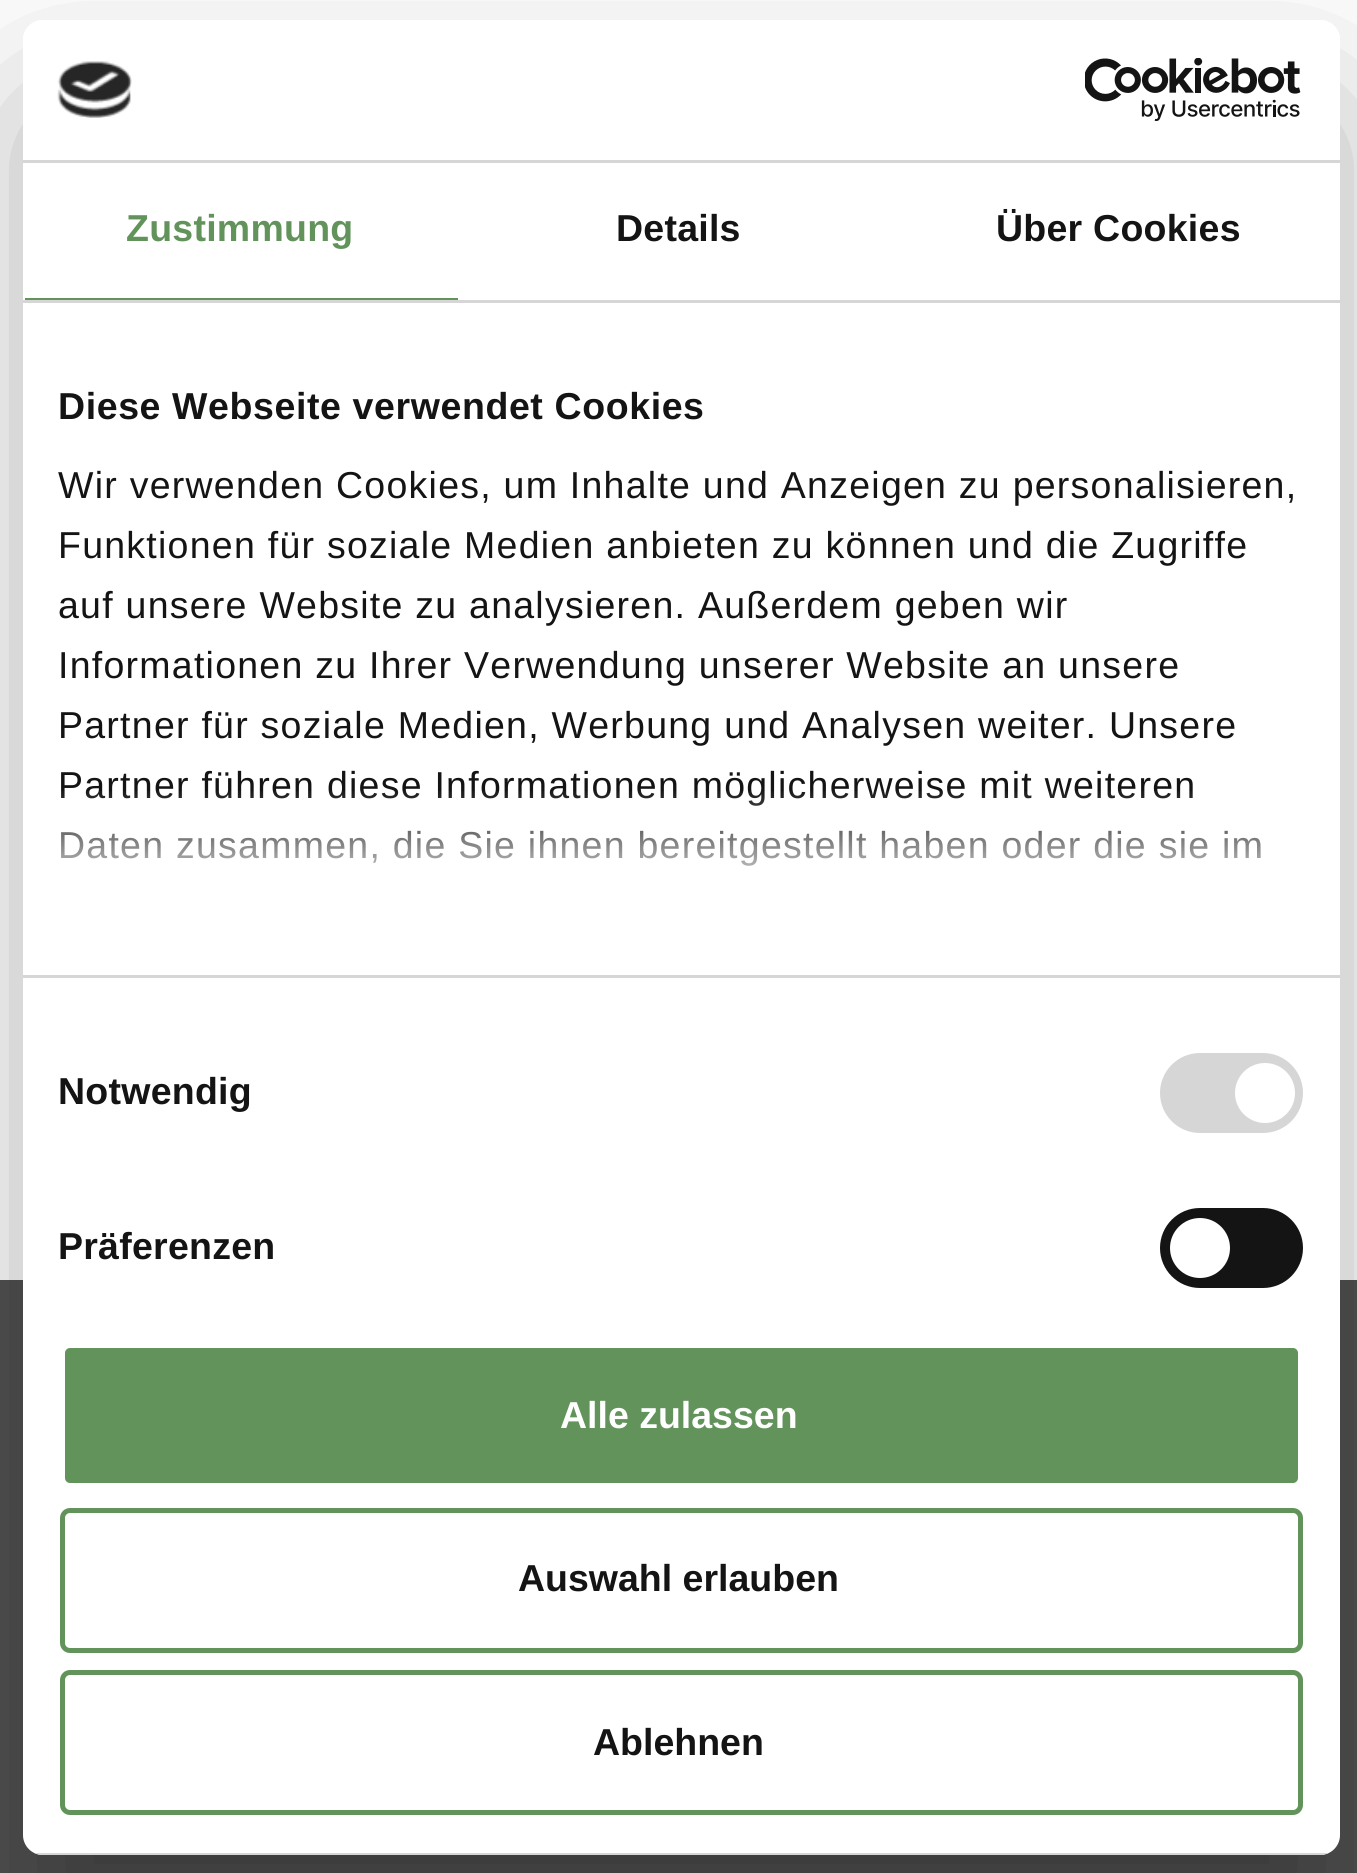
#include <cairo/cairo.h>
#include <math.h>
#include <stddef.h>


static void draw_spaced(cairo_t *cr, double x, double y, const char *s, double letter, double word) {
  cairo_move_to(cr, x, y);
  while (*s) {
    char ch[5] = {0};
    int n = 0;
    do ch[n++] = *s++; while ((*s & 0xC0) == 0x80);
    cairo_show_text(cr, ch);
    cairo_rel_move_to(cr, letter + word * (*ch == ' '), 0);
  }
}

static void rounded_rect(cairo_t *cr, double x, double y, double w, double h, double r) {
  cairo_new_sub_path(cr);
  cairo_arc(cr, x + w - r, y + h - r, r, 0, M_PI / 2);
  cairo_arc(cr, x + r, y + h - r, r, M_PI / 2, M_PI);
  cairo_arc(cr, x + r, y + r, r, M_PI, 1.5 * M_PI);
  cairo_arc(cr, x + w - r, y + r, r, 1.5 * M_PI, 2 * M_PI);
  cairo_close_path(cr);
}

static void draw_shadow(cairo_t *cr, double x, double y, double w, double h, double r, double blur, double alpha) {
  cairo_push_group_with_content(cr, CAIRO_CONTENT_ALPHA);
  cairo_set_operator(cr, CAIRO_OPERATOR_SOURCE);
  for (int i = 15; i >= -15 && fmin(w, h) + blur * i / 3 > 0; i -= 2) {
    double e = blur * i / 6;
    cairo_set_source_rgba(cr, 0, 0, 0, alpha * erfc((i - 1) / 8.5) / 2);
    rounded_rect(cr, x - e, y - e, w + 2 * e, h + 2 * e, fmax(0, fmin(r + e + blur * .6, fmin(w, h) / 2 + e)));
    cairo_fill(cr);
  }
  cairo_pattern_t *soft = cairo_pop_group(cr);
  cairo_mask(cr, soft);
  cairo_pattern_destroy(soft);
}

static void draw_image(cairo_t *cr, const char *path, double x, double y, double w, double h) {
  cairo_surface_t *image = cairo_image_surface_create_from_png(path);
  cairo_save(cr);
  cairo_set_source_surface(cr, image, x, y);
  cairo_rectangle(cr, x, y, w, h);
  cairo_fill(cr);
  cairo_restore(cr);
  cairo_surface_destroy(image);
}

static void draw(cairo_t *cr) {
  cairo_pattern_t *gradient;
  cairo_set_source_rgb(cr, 1, 1, 1);
  cairo_paint(cr);
  cairo_set_source_rgb(cr, 82 / 255.0, 82 / 255.0, 82 / 255.0);
  cairo_rectangle(cr, 0, 1280, 1357, 593);
  cairo_fill(cr);
  cairo_save(cr);
  cairo_set_fill_rule(cr, CAIRO_FILL_RULE_EVEN_ODD);
  cairo_new_path(cr);
  cairo_move_to(cr, 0, 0);
  cairo_line_to(cr, 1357, 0);
  cairo_line_to(cr, 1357, 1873);
  cairo_line_to(cr, 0, 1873);
  cairo_close_path(cr);
  cairo_move_to(cr, 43, 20);
  cairo_line_to(cr, 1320, 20);
  cairo_curve_to(cr, 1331, 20, 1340, 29, 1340, 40);
  cairo_line_to(cr, 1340, 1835);
  cairo_curve_to(cr, 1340, 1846, 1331, 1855, 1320, 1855);
  cairo_line_to(cr, 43, 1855);
  cairo_curve_to(cr, 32, 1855, 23, 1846, 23, 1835);
  cairo_line_to(cr, 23, 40);
  cairo_curve_to(cr, 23, 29, 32, 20, 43, 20);
  cairo_close_path(cr);
  cairo_clip(cr);
  cairo_set_source_rgb(cr, 0, 0, 0);
  draw_shadow(cr, 23, 100, 1317, 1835, 20, 85, 0.3);
  cairo_restore(cr);
  cairo_set_source_rgb(cr, 1, 1, 1);
  rounded_rect(cr, 23, 20, 1317, 1835, 20);
  cairo_fill(cr);
  cairo_set_source_rgb(cr, 214 / 255.0, 214 / 255.0, 214 / 255.0);
  cairo_rectangle(cr, 23, 160, 1317, 3);
  cairo_fill(cr);
  draw_image(cr, "images/1.png", 57, 61, 75, 57);
  draw_image(cr, "images/2.png", 1085, 58, 216, 63);
  cairo_rectangle(cr, 23, 300, 1317, 3);
  cairo_fill(cr);
  cairo_set_source_rgb(cr, 98 / 255.0, 147 / 255.0, 91 / 255.0);
  cairo_rectangle(cr, 25, 298, 433, 2);
  cairo_fill(cr);
  cairo_set_source_rgb(cr, 214 / 255.0, 214 / 255.0, 214 / 255.0);
  cairo_rectangle(cr, 23, 975, 1317, 3);
  cairo_fill(cr);
  rounded_rect(cr, 1160, 1053, 143, 80, 40);
  cairo_fill(cr);
  cairo_set_source_rgb(cr, 1, 1, 1);
  cairo_arc(cr, 1265, 1093, 30, 0, 2 * M_PI);
  cairo_fill(cr);
  cairo_set_source_rgb(cr, 20 / 255.0, 20 / 255.0, 20 / 255.0);
  rounded_rect(cr, 1160, 1208, 143, 80, 40);
  cairo_fill(cr);
  cairo_set_source_rgb(cr, 1, 1, 1);
  cairo_arc(cr, 1200, 1248, 30, 0, 2 * M_PI);
  cairo_fill(cr);
  cairo_save(cr);
  rounded_rect(cr, 23, 20, 1317, 1835, 20);
  cairo_clip(cr);
  cairo_set_source_rgb(cr, 214 / 255.0, 214 / 255.0, 214 / 255.0);
  cairo_rectangle(cr, 34, 1853, 1295, 2);
  cairo_fill(cr);
  cairo_restore(cr);
  cairo_set_source_rgb(cr, 98 / 255.0, 147 / 255.0, 91 / 255.0);
  rounded_rect(cr, 62.5, 1345.5, 1238, 140, 7.5);
  cairo_fill_preserve(cr);
  cairo_set_source_rgb(cr, 1, 1, 1);
  cairo_set_line_width(cr, 5);
  cairo_stroke(cr);
  rounded_rect(cr, 62.5, 1510.5, 1238, 140, 7.5);
  cairo_set_source_rgb(cr, 98 / 255.0, 147 / 255.0, 91 / 255.0);
  cairo_stroke(cr);
  rounded_rect(cr, 62.5, 1672.5, 1238, 140, 7.5);
  cairo_stroke(cr);
  cairo_select_font_face(cr, "Liberation Sans", CAIRO_FONT_SLANT_NORMAL, CAIRO_FONT_WEIGHT_BOLD);
  cairo_set_font_size(cr, 37.5);
  draw_spaced(cr, 126, 241, "Zustimmung", 0.25, 0);
  cairo_set_source_rgb(cr, 20 / 255.0, 20 / 255.0, 20 / 255.0);
  draw_spaced(cr, 616, 241, "Details", 0.25, 0);
  draw_spaced(cr, 996, 241, "Über Cookies", 0.25, 0);
  draw_spaced(cr, 58, 419, "Diese Webseite verwendet Cookies", 0.6, 0);
  cairo_select_font_face(cr, "Liberation Sans", CAIRO_FONT_SLANT_NORMAL, CAIRO_FONT_WEIGHT_NORMAL);
  draw_spaced(cr, 58, 498, "Wir verwenden Cookies, um Inhalte und Anzeigen zu personalisieren,", 1.25, 0);
  draw_spaced(cr, 58, 558, "Funktionen für soziale Medien anbieten zu können und die Zugriffe", 1.25, 0);
  draw_spaced(cr, 58, 618, "auf unsere Website zu analysieren. Außerdem geben wir", 1.25, 0);
  draw_spaced(cr, 58, 678, "Informationen zu Ihrer Verwendung unserer Website an unsere", 1.25, 0);
  draw_spaced(cr, 58, 738, "Partner für soziale Medien, Werbung und Analysen weiter. Unsere", 1.25, 0);
  draw_spaced(cr, 58, 798, "Partner führen diese Informationen möglicherweise mit weiteren", 1.25, 0);
  draw_spaced(cr, 58, 858, "Daten zusammen, die Sie ihnen bereitgestellt haben oder die sie im", 1.25, 0);
  gradient = cairo_pattern_create_linear(664, 975, 664, 788);
  cairo_pattern_add_color_stop_rgba(gradient, 0, 1, 1, 1, 1);
  cairo_pattern_add_color_stop_rgba(gradient, 0.5, 1, 1, 1, 0.8);
  cairo_pattern_add_color_stop_rgba(gradient, 1, 1, 1, 1, 0);
  cairo_set_source(cr, gradient);
  cairo_pattern_destroy(gradient);
  cairo_rectangle(cr, 60, 791, 1200, 75);
  cairo_fill(cr);
  cairo_select_font_face(cr, "Liberation Sans", CAIRO_FONT_SLANT_NORMAL, CAIRO_FONT_WEIGHT_BOLD);
  cairo_set_source_rgb(cr, 20 / 255.0, 20 / 255.0, 20 / 255.0);
  draw_spaced(cr, 58, 1104, "Notwendig", 0.25, 0);
  draw_spaced(cr, 58, 1259, "Präferenzen", 0.25, 0);
  cairo_set_source_rgb(cr, 1, 1, 1);
  cairo_move_to(cr, 560, 1428);
  cairo_show_text(cr, "Alle zulassen");
  cairo_set_source_rgb(cr, 20 / 255.0, 20 / 255.0, 20 / 255.0);
  cairo_move_to(cr, 518, 1591);
  cairo_show_text(cr, "Auswahl erlauben");
  cairo_move_to(cr, 593, 1755);
  cairo_show_text(cr, "Ablehnen");
}

int main(void) {
  cairo_surface_t *surface = cairo_image_surface_create(CAIRO_FORMAT_RGB24, 1357, 1873);
  cairo_t *cr = cairo_create(surface);
  cairo_font_options_t *options = cairo_font_options_create();
  cairo_font_options_set_hint_metrics(options, CAIRO_HINT_METRICS_OFF);
  cairo_font_options_set_hint_style(options, CAIRO_HINT_STYLE_NONE);
  cairo_set_font_options(cr, options);
  cairo_set_miter_limit(cr, 4);
  draw(cr);
  cairo_surface_write_to_png(surface, "out.png");
  cairo_font_options_destroy(options);
  cairo_destroy(cr);
  cairo_surface_destroy(surface);
  return 0;
}
